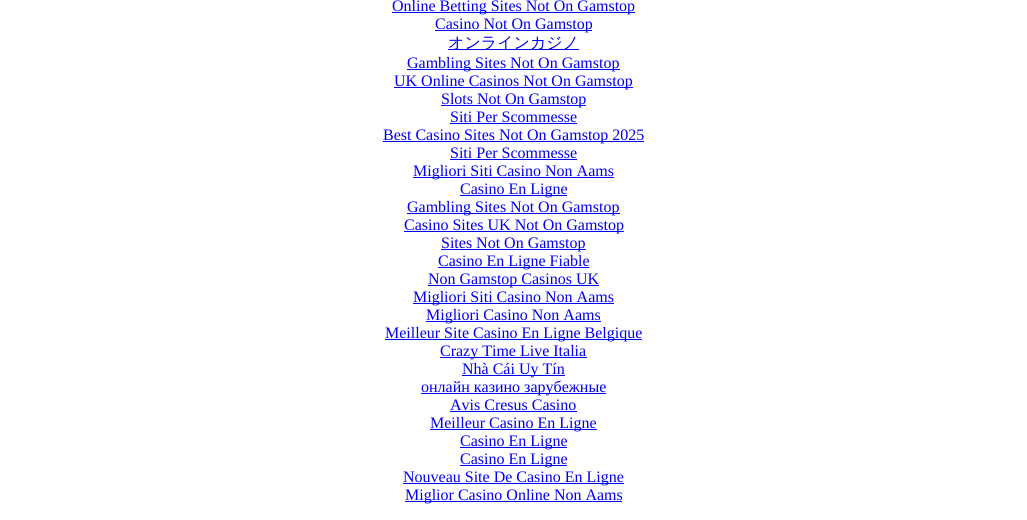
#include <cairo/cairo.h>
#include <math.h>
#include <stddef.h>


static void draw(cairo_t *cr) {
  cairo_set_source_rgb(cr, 1, 1, 1);
  cairo_paint(cr);
  cairo_set_source_rgb(cr, 0, 0, 238 / 255.0);
  cairo_rectangle(cr, 392, 12, 243, 1);
  cairo_fill(cr);
  cairo_rectangle(cr, 435, 30, 157, 1);
  cairo_fill(cr);
  cairo_rectangle(cr, 448, 49, 131, 1);
  cairo_fill(cr);
  cairo_rectangle(cr, 407, 69, 213, 1);
  cairo_fill(cr);
  cairo_rectangle(cr, 394, 87, 239, 1);
  cairo_fill(cr);
  cairo_rectangle(cr, 441, 105, 145, 1);
  cairo_fill(cr);
  cairo_rectangle(cr, 450, 123, 127, 1);
  cairo_fill(cr);
  cairo_rectangle(cr, 383, 141, 261, 1);
  cairo_fill(cr);
  cairo_rectangle(cr, 450, 159, 127, 1);
  cairo_fill(cr);
  cairo_rectangle(cr, 413, 177, 201, 1);
  cairo_fill(cr);
  cairo_rectangle(cr, 460, 195, 107, 1);
  cairo_fill(cr);
  cairo_rectangle(cr, 407, 213, 213, 1);
  cairo_fill(cr);
  cairo_rectangle(cr, 404, 231, 220, 1);
  cairo_fill(cr);
  cairo_rectangle(cr, 441, 249, 145, 1);
  cairo_fill(cr);
  cairo_rectangle(cr, 438, 267, 151, 1);
  cairo_fill(cr);
  cairo_rectangle(cr, 428, 285, 171, 1);
  cairo_fill(cr);
  cairo_rectangle(cr, 413, 303, 201, 1);
  cairo_fill(cr);
  cairo_rectangle(cr, 426, 321, 175, 1);
  cairo_fill(cr);
  cairo_rectangle(cr, 385, 339, 257, 1);
  cairo_fill(cr);
  cairo_rectangle(cr, 440, 357, 147, 1);
  cairo_fill(cr);
  cairo_rectangle(cr, 462, 375, 103, 1);
  cairo_fill(cr);
  cairo_rectangle(cr, 421, 393, 185, 1);
  cairo_fill(cr);
  cairo_rectangle(cr, 450, 411, 127, 1);
  cairo_fill(cr);
  cairo_rectangle(cr, 430, 429, 167, 1);
  cairo_fill(cr);
  cairo_rectangle(cr, 460, 447, 107, 1);
  cairo_fill(cr);
  cairo_rectangle(cr, 460, 465, 107, 1);
  cairo_fill(cr);
  cairo_rectangle(cr, 403, 483, 221, 1);
  cairo_fill(cr);
  cairo_rectangle(cr, 405, 501, 217, 1);
  cairo_fill(cr);
  cairo_select_font_face(cr, "Liberation Serif", CAIRO_FONT_SLANT_NORMAL, CAIRO_FONT_WEIGHT_NORMAL);
  cairo_set_font_size(cr, 16);
  cairo_move_to(cr, 392, 11);
  cairo_show_text(cr, "Online Betting Sites Not On Gamstop");
  cairo_move_to(cr, 435, 29);
  cairo_show_text(cr, "Casino Not On Gamstop");
  cairo_select_font_face(cr, "WenQuanYi Zen Hei Medium", CAIRO_FONT_SLANT_NORMAL, CAIRO_FONT_WEIGHT_NORMAL);
  cairo_move_to(cr, 448, 48);
  cairo_show_text(cr, "オンラインカジノ");
  cairo_select_font_face(cr, "Liberation Serif", CAIRO_FONT_SLANT_NORMAL, CAIRO_FONT_WEIGHT_NORMAL);
  cairo_move_to(cr, 407, 68);
  cairo_show_text(cr, "Gambling Sites Not On Gamstop");
  cairo_move_to(cr, 394, 86);
  cairo_show_text(cr, "UK Online Casinos Not On Gamstop");
  cairo_move_to(cr, 441, 104);
  cairo_show_text(cr, "Slots Not On Gamstop");
  cairo_move_to(cr, 450, 122);
  cairo_show_text(cr, "Siti Per Scommesse");
  cairo_move_to(cr, 383, 140);
  cairo_show_text(cr, "Best Casino Sites Not On Gamstop 2025");
  cairo_move_to(cr, 450, 158);
  cairo_show_text(cr, "Siti Per Scommesse");
  cairo_move_to(cr, 413, 176);
  cairo_show_text(cr, "Migliori Siti Casino Non Aams");
  cairo_move_to(cr, 460, 194);
  cairo_show_text(cr, "Casino En Ligne");
  cairo_move_to(cr, 407, 212);
  cairo_show_text(cr, "Gambling Sites Not On Gamstop");
  cairo_move_to(cr, 404, 230);
  cairo_show_text(cr, "Casino Sites UK Not On Gamstop");
  cairo_move_to(cr, 441, 248);
  cairo_show_text(cr, "Sites Not On Gamstop");
  cairo_move_to(cr, 438, 266);
  cairo_show_text(cr, "Casino En Ligne Fiable");
  cairo_move_to(cr, 428, 284);
  cairo_show_text(cr, "Non Gamstop Casinos UK");
  cairo_move_to(cr, 413, 302);
  cairo_show_text(cr, "Migliori Siti Casino Non Aams");
  cairo_move_to(cr, 426, 320);
  cairo_show_text(cr, "Migliori Casino Non Aams");
  cairo_move_to(cr, 385, 338);
  cairo_show_text(cr, "Meilleur Site Casino En Ligne Belgique");
  cairo_move_to(cr, 440, 356);
  cairo_show_text(cr, "Crazy Time Live Italia");
  cairo_move_to(cr, 462, 374);
  cairo_show_text(cr, "Nhà Cái Uy Tín");
  cairo_move_to(cr, 421, 392);
  cairo_show_text(cr, "онлайн казино зарубежные");
  cairo_move_to(cr, 450, 410);
  cairo_show_text(cr, "Avis Cresus Casino");
  cairo_move_to(cr, 430, 428);
  cairo_show_text(cr, "Meilleur Casino En Ligne");
  cairo_move_to(cr, 460, 446);
  cairo_show_text(cr, "Casino En Ligne");
  cairo_move_to(cr, 460, 464);
  cairo_show_text(cr, "Casino En Ligne");
  cairo_move_to(cr, 403, 482);
  cairo_show_text(cr, "Nouveau Site De Casino En Ligne");
  cairo_move_to(cr, 405, 500);
  cairo_show_text(cr, "Miglior Casino Online Non Aams");
}

int main(void) {
  cairo_surface_t *surface = cairo_image_surface_create(CAIRO_FORMAT_RGB24, 1027, 520);
  cairo_t *cr = cairo_create(surface);
  cairo_font_options_t *options = cairo_font_options_create();
  cairo_font_options_set_hint_metrics(options, CAIRO_HINT_METRICS_OFF);
  cairo_font_options_set_hint_style(options, CAIRO_HINT_STYLE_NONE);
  cairo_set_font_options(cr, options);
  cairo_set_miter_limit(cr, 4);
  draw(cr);
  cairo_surface_write_to_png(surface, "out.png");
  cairo_font_options_destroy(options);
  cairo_destroy(cr);
  cairo_surface_destroy(surface);
  return 0;
}
